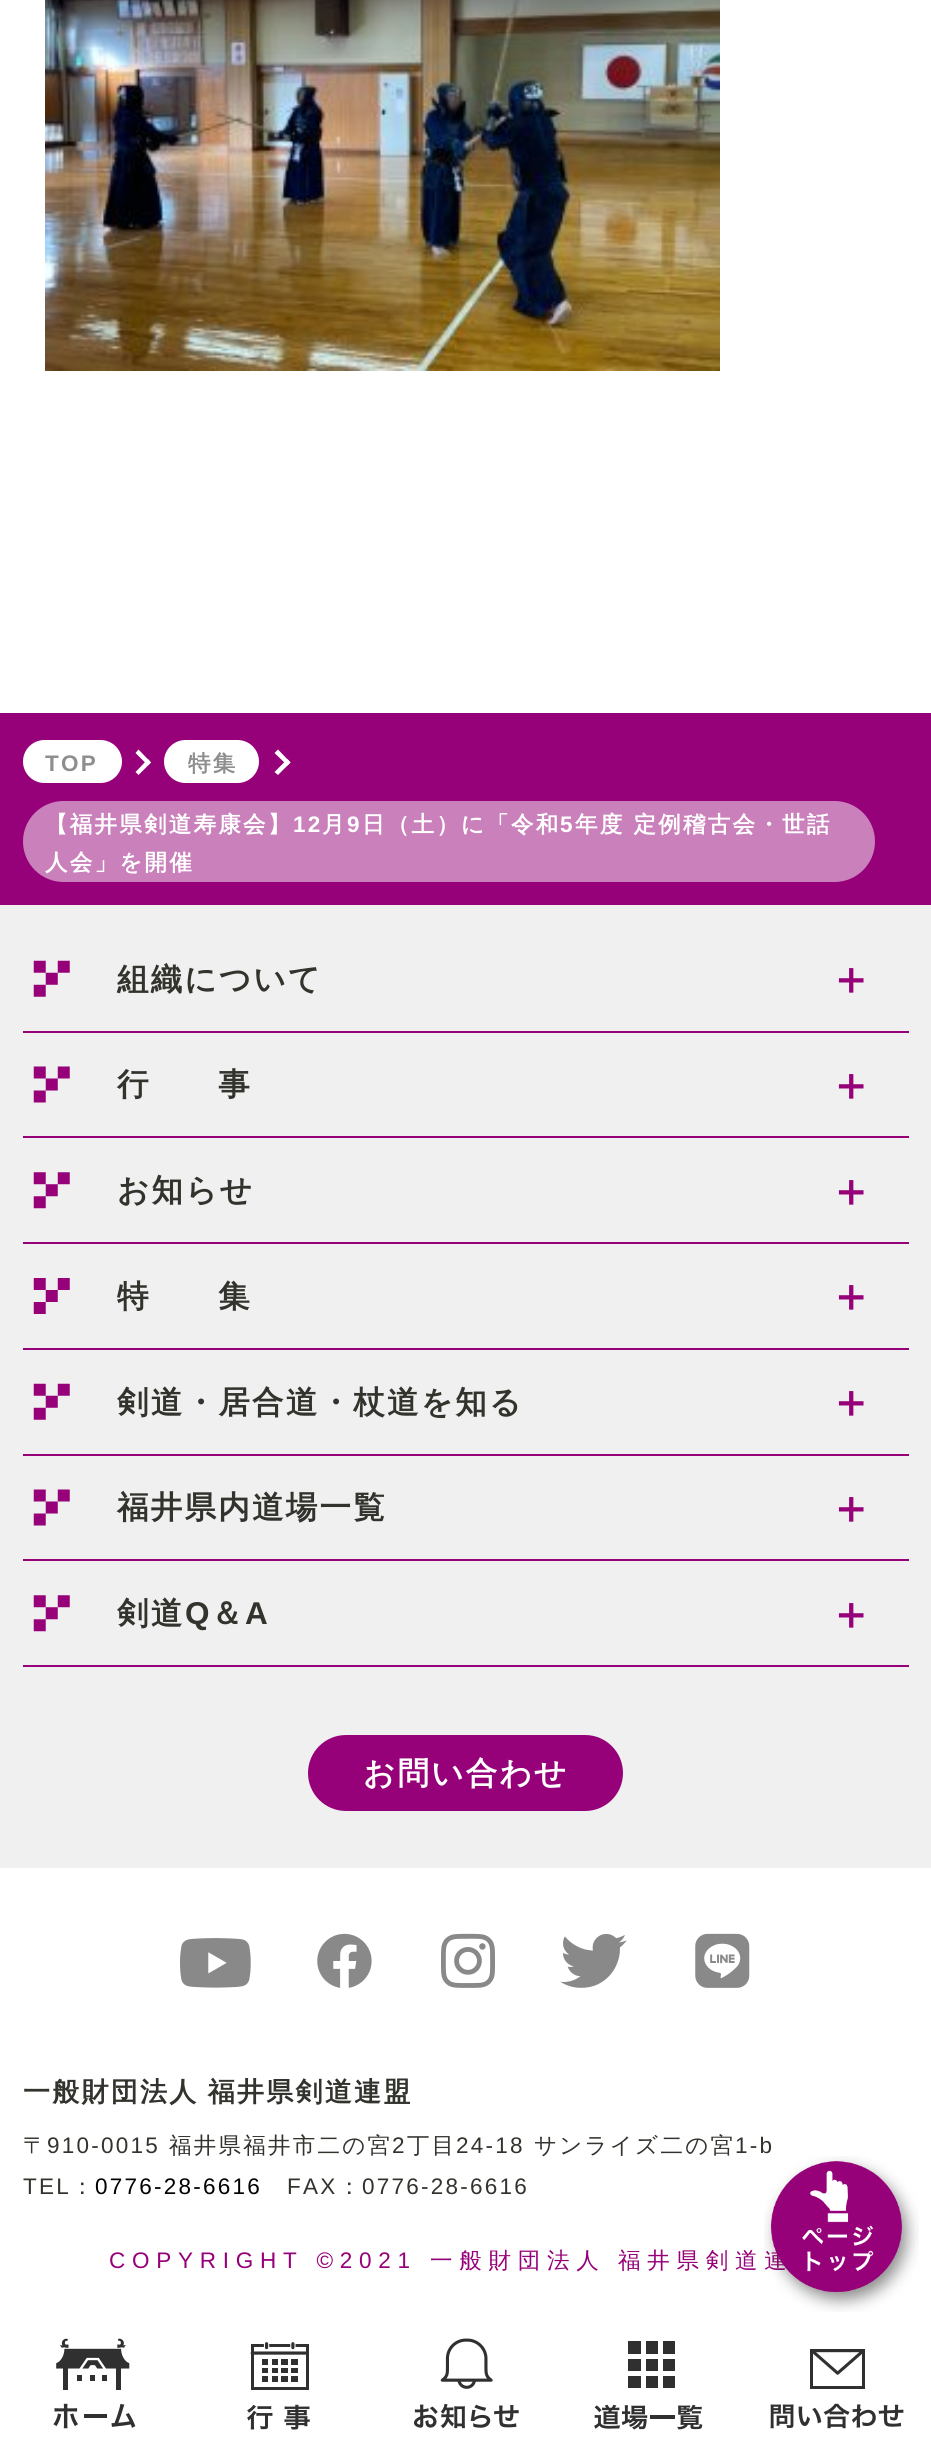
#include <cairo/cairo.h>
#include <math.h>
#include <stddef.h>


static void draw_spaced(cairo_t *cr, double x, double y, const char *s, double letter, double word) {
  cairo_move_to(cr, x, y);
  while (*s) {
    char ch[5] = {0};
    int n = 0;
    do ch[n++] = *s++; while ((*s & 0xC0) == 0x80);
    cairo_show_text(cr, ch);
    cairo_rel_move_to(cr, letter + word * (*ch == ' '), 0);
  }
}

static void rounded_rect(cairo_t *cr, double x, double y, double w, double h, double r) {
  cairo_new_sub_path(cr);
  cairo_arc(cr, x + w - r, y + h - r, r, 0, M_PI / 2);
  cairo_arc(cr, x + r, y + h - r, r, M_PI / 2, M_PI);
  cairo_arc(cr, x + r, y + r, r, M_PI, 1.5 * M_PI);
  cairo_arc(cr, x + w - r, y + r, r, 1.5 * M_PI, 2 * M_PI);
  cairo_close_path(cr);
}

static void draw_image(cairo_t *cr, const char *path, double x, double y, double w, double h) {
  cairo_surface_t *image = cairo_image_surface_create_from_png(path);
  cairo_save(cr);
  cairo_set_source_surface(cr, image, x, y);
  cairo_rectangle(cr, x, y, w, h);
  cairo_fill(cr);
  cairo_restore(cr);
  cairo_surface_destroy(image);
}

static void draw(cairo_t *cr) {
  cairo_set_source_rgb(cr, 1, 1, 1);
  cairo_paint(cr);
  draw_image(cr, "images/1.png", 45, 0, 675, 371);
  cairo_set_source_rgb(cr, 150 / 255.0, 0, 120 / 255.0);
  cairo_rectangle(cr, 0, 713, 931, 192);
  cairo_fill(cr);
  cairo_set_source_rgb(cr, 1, 1, 1);
  rounded_rect(cr, 23, 740, 99, 43, 21.5);
  cairo_fill(cr);
  cairo_new_path(cr);
  cairo_move_to(cr, 138.5, 749.5);
  cairo_line_to(cr, 151, 762.5);
  cairo_line_to(cr, 148, 765.5);
  cairo_line_to(cr, 135.5, 753);
  cairo_close_path(cr);
  cairo_fill(cr);
  cairo_new_path(cr);
  cairo_move_to(cr, 148, 759);
  cairo_line_to(cr, 151, 762.5);
  cairo_line_to(cr, 138.5, 775);
  cairo_line_to(cr, 135.5, 772);
  cairo_close_path(cr);
  cairo_fill(cr);
  rounded_rect(cr, 164, 740, 95, 43, 21.5);
  cairo_fill(cr);
  cairo_new_path(cr);
  cairo_move_to(cr, 278, 749.5);
  cairo_line_to(cr, 290.5, 762.5);
  cairo_line_to(cr, 287.5, 765.5);
  cairo_line_to(cr, 274.5, 753);
  cairo_close_path(cr);
  cairo_fill(cr);
  cairo_new_path(cr);
  cairo_move_to(cr, 287.5, 759);
  cairo_line_to(cr, 290.5, 762.5);
  cairo_line_to(cr, 278, 775);
  cairo_line_to(cr, 274.5, 772);
  cairo_close_path(cr);
  cairo_fill(cr);
  cairo_set_source_rgb(cr, 202 / 255.0, 128 / 255.0, 187 / 255.0);
  rounded_rect(cr, 23, 801, 852, 81, 40.5);
  cairo_fill(cr);
  cairo_set_source_rgb(cr, 240 / 255.0, 240 / 255.0, 240 / 255.0);
  cairo_rectangle(cr, 0, 905, 931, 963);
  cairo_fill(cr);
  cairo_set_source_rgb(cr, 150 / 255.0, 0, 120 / 255.0);
  cairo_rectangle(cr, 23, 1031, 886, 2);
  cairo_fill(cr);
  draw_image(cr, "images/2.png", 33, 960, 37, 37);
  cairo_rectangle(cr, 23, 1136, 886, 2);
  cairo_fill(cr);
  draw_image(cr, "images/3.png", 33, 1066, 37, 37);
  cairo_rectangle(cr, 23, 1242, 886, 2);
  cairo_fill(cr);
  draw_image(cr, "images/4.png", 33, 1172, 37, 37);
  cairo_rectangle(cr, 23, 1348, 886, 2);
  cairo_fill(cr);
  draw_image(cr, "images/5.png", 33, 1278, 37, 36);
  cairo_rectangle(cr, 23, 1454, 886, 2);
  cairo_fill(cr);
  draw_image(cr, "images/2.png", 33, 1383, 37, 37);
  cairo_rectangle(cr, 23, 1559, 886, 2);
  cairo_fill(cr);
  draw_image(cr, "images/3.png", 33, 1489, 37, 37);
  cairo_rectangle(cr, 23, 1665, 886, 2);
  cairo_fill(cr);
  draw_image(cr, "images/4.png", 33, 1595, 37, 37);
  rounded_rect(cr, 308, 1735, 315, 76, 38);
  cairo_fill(cr);
  draw_image(cr, "images/6.png", 180, 1938, 71, 50);
  draw_image(cr, "images/7.png", 317, 1933, 55, 55);
  draw_image(cr, "images/8.png", 441, 1933, 54, 55);
  draw_image(cr, "images/9.png", 560, 1933, 67, 55);
  draw_image(cr, "images/10.png", 695, 1933, 55, 55);
  draw_image(cr, "images/11.png", 53, 2338, 83, 91);
  draw_image(cr, "images/12.png", 247, 2342, 63, 88);
  draw_image(cr, "images/13.png", 413, 2338, 106, 91);
  draw_image(cr, "images/14.png", 594, 2341, 109, 89);
  draw_image(cr, "images/15.png", 770, 2349, 134, 80);
  cairo_select_font_face(cr, "Liberation Sans", CAIRO_FONT_SLANT_NORMAL, CAIRO_FONT_WEIGHT_BOLD);
  cairo_set_font_size(cr, 22.5);
  cairo_set_source_rgb(cr, 142 / 255.0, 142 / 255.0, 142 / 255.0);
  draw_spaced(cr, 45, 771, "TOP", 2.25, 0);
  cairo_select_font_face(cr, "WenQuanYi Zen Hei", CAIRO_FONT_SLANT_NORMAL, CAIRO_FONT_WEIGHT_BOLD);
  draw_spaced(cr, 188, 771, "特集", 2.25, 0);
  cairo_set_source_rgb(cr, 1, 1, 1);
  draw_spaced(cr, 45, 832, "【福井県剣道寿康会】", 2.25, 0);
  cairo_select_font_face(cr, "Liberation Sans", CAIRO_FONT_SLANT_NORMAL, CAIRO_FONT_WEIGHT_BOLD);
  draw_spaced(cr, 293, 832, "12", 2.25, 0);
  cairo_select_font_face(cr, "WenQuanYi Zen Hei", CAIRO_FONT_SLANT_NORMAL, CAIRO_FONT_WEIGHT_BOLD);
  draw_spaced(cr, 322, 832, "月", 2.25, 0);
  cairo_select_font_face(cr, "Liberation Sans", CAIRO_FONT_SLANT_NORMAL, CAIRO_FONT_WEIGHT_BOLD);
  draw_spaced(cr, 347, 832, "9", 2.25, 0);
  cairo_select_font_face(cr, "WenQuanYi Zen Hei", CAIRO_FONT_SLANT_NORMAL, CAIRO_FONT_WEIGHT_BOLD);
  draw_spaced(cr, 362, 832, "日（土）に「令和", 2.25, 0);
  cairo_select_font_face(cr, "Liberation Sans", CAIRO_FONT_SLANT_NORMAL, CAIRO_FONT_WEIGHT_BOLD);
  draw_spaced(cr, 560, 832, "5", 2.25, 0);
  cairo_select_font_face(cr, "WenQuanYi Zen Hei", CAIRO_FONT_SLANT_NORMAL, CAIRO_FONT_WEIGHT_BOLD);
  draw_spaced(cr, 575, 832, "年度 定例稽古会・世話", 2.25, 0);
  draw_spaced(cr, 45, 870, "人会」を開催", 2.25, 0);
  cairo_set_font_size(cr, 31.5);
  cairo_set_source_rgb(cr, 51 / 255.0, 51 / 255.0, 46 / 255.0);
  draw_spaced(cr, 117, 990, "組織について", 2.25, 0);
  cairo_set_font_size(cr, 45);
  cairo_set_source_rgb(cr, 150 / 255.0, 0, 120 / 255.0);
  draw_spaced(cr, 828, 994, "＋", 2.25, 0);
  cairo_set_font_size(cr, 31.5);
  cairo_set_source_rgb(cr, 51 / 255.0, 51 / 255.0, 46 / 255.0);
  draw_spaced(cr, 117, 1095, "行　　事", 2.25, 0);
  cairo_set_font_size(cr, 45);
  cairo_set_source_rgb(cr, 150 / 255.0, 0, 120 / 255.0);
  draw_spaced(cr, 828, 1100, "＋", 2.25, 0);
  cairo_set_font_size(cr, 31.5);
  cairo_set_source_rgb(cr, 51 / 255.0, 51 / 255.0, 46 / 255.0);
  draw_spaced(cr, 117, 1201, "お知らせ", 2.25, 0);
  cairo_set_font_size(cr, 45);
  cairo_set_source_rgb(cr, 150 / 255.0, 0, 120 / 255.0);
  draw_spaced(cr, 828, 1206, "＋", 2.25, 0);
  cairo_set_font_size(cr, 31.5);
  cairo_set_source_rgb(cr, 51 / 255.0, 51 / 255.0, 46 / 255.0);
  draw_spaced(cr, 117, 1307, "特　　集", 2.25, 0);
  cairo_set_font_size(cr, 45);
  cairo_set_source_rgb(cr, 150 / 255.0, 0, 120 / 255.0);
  draw_spaced(cr, 828, 1311, "＋", 2.25, 0);
  cairo_set_font_size(cr, 31.5);
  cairo_set_source_rgb(cr, 51 / 255.0, 51 / 255.0, 46 / 255.0);
  draw_spaced(cr, 117, 1413, "剣道・居合道・杖道を知る", 2.25, 0);
  cairo_set_font_size(cr, 45);
  cairo_set_source_rgb(cr, 150 / 255.0, 0, 120 / 255.0);
  draw_spaced(cr, 828, 1417, "＋", 2.25, 0);
  cairo_set_font_size(cr, 31.5);
  cairo_set_source_rgb(cr, 51 / 255.0, 51 / 255.0, 46 / 255.0);
  draw_spaced(cr, 117, 1518, "福井県内道場一覧", 2.25, 0);
  cairo_set_font_size(cr, 45);
  cairo_set_source_rgb(cr, 150 / 255.0, 0, 120 / 255.0);
  draw_spaced(cr, 828, 1523, "＋", 2.25, 0);
  cairo_set_font_size(cr, 31.5);
  cairo_set_source_rgb(cr, 51 / 255.0, 51 / 255.0, 46 / 255.0);
  draw_spaced(cr, 117, 1624, "剣道", 2.25, 0);
  cairo_select_font_face(cr, "Liberation Sans", CAIRO_FONT_SLANT_NORMAL, CAIRO_FONT_WEIGHT_BOLD);
  draw_spaced(cr, 185, 1624, "Q", 2.25, 0);
  cairo_select_font_face(cr, "WenQuanYi Zen Hei", CAIRO_FONT_SLANT_NORMAL, CAIRO_FONT_WEIGHT_BOLD);
  draw_spaced(cr, 211, 1624, "＆", 2.25, 0);
  cairo_select_font_face(cr, "Liberation Sans", CAIRO_FONT_SLANT_NORMAL, CAIRO_FONT_WEIGHT_BOLD);
  draw_spaced(cr, 245, 1624, "A", 2.25, 0);
  cairo_select_font_face(cr, "WenQuanYi Zen Hei", CAIRO_FONT_SLANT_NORMAL, CAIRO_FONT_WEIGHT_BOLD);
  cairo_set_font_size(cr, 45);
  cairo_set_source_rgb(cr, 150 / 255.0, 0, 120 / 255.0);
  draw_spaced(cr, 828, 1629, "＋", 2.25, 0);
  cairo_set_font_size(cr, 31.5);
  cairo_set_source_rgb(cr, 1, 1, 1);
  draw_spaced(cr, 363, 1784, "お問い合わせ", 2.25, 0);
  cairo_set_font_size(cr, 27);
  cairo_set_source_rgb(cr, 51 / 255.0, 51 / 255.0, 46 / 255.0);
  draw_spaced(cr, 23, 2101, "一般財団法人 福井県剣道連盟", 2.25, -1);
  cairo_select_font_face(cr, "WenQuanYi Zen Hei Medium", CAIRO_FONT_SLANT_NORMAL, CAIRO_FONT_WEIGHT_NORMAL);
  cairo_set_font_size(cr, 22.5);
  draw_spaced(cr, 23, 2153, "〒", 2.25, 0);
  cairo_select_font_face(cr, "Liberation Sans", CAIRO_FONT_SLANT_NORMAL, CAIRO_FONT_WEIGHT_NORMAL);
  draw_spaced(cr, 47, 2153, "910-0015", 2.25, 0);
  cairo_select_font_face(cr, "WenQuanYi Zen Hei Medium", CAIRO_FONT_SLANT_NORMAL, CAIRO_FONT_WEIGHT_NORMAL);
  draw_spaced(cr, 169, 2153, "福井県福井市二の宮", 2.25, 0);
  cairo_select_font_face(cr, "Liberation Sans", CAIRO_FONT_SLANT_NORMAL, CAIRO_FONT_WEIGHT_NORMAL);
  draw_spaced(cr, 392, 2153, "2", 2.25, 0);
  cairo_select_font_face(cr, "WenQuanYi Zen Hei Medium", CAIRO_FONT_SLANT_NORMAL, CAIRO_FONT_WEIGHT_NORMAL);
  draw_spaced(cr, 407, 2153, "丁目", 2.25, 0);
  cairo_select_font_face(cr, "Liberation Sans", CAIRO_FONT_SLANT_NORMAL, CAIRO_FONT_WEIGHT_NORMAL);
  draw_spaced(cr, 456, 2153, "24-18", 2.25, 0);
  cairo_select_font_face(cr, "WenQuanYi Zen Hei Medium", CAIRO_FONT_SLANT_NORMAL, CAIRO_FONT_WEIGHT_NORMAL);
  draw_spaced(cr, 534, 2153, "サンライズ二の宮", 2.25, 0);
  cairo_select_font_face(cr, "Liberation Sans", CAIRO_FONT_SLANT_NORMAL, CAIRO_FONT_WEIGHT_NORMAL);
  draw_spaced(cr, 735, 2153, "1-b", 2.25, 0);
  draw_spaced(cr, 23, 2194, "TEL", 2.25, 0);
  cairo_select_font_face(cr, "WenQuanYi Zen Hei Medium", CAIRO_FONT_SLANT_NORMAL, CAIRO_FONT_WEIGHT_NORMAL);
  draw_spaced(cr, 71, 2194, "：", 2.25, 0);
  cairo_select_font_face(cr, "Liberation Sans", CAIRO_FONT_SLANT_NORMAL, CAIRO_FONT_WEIGHT_NORMAL);
  cairo_set_source_rgb(cr, 0, 0, 0);
  draw_spaced(cr, 95, 2194, "0776-28-6616", 2.25, 0);
  cairo_set_source_rgb(cr, 51 / 255.0, 51 / 255.0, 46 / 255.0);
  draw_spaced(cr, 287, 2194, "FAX", 2.25, 0);
  cairo_select_font_face(cr, "WenQuanYi Zen Hei Medium", CAIRO_FONT_SLANT_NORMAL, CAIRO_FONT_WEIGHT_NORMAL);
  draw_spaced(cr, 338, 2194, "：", 2.25, 0);
  cairo_select_font_face(cr, "Liberation Sans", CAIRO_FONT_SLANT_NORMAL, CAIRO_FONT_WEIGHT_NORMAL);
  draw_spaced(cr, 362, 2194, "0776-28-6616", 2.25, 0);
  cairo_set_source_rgb(cr, 150 / 255.0, 0, 120 / 255.0);
  draw_spaced(cr, 109, 2268, "COPYRIGHT ©2021", 6.75, 0);
  cairo_select_font_face(cr, "WenQuanYi Zen Hei Medium", CAIRO_FONT_SLANT_NORMAL, CAIRO_FONT_WEIGHT_NORMAL);
  draw_spaced(cr, 430, 2268, "一般財団法人", 6.75, 0);
  draw_spaced(cr, 618, 2268, "福井県剣道連", 6.75, 0);
  draw_image(cr, "images/16.png", 764, 2156, 155, 156);
}

int main(void) {
  cairo_surface_t *surface = cairo_image_surface_create(CAIRO_FORMAT_RGB24, 931, 2458);
  cairo_t *cr = cairo_create(surface);
  cairo_font_options_t *options = cairo_font_options_create();
  cairo_font_options_set_hint_metrics(options, CAIRO_HINT_METRICS_OFF);
  cairo_font_options_set_hint_style(options, CAIRO_HINT_STYLE_NONE);
  cairo_set_font_options(cr, options);
  cairo_set_miter_limit(cr, 4);
  draw(cr);
  cairo_surface_write_to_png(surface, "out.png");
  cairo_font_options_destroy(options);
  cairo_destroy(cr);
  cairo_surface_destroy(surface);
  return 0;
}
